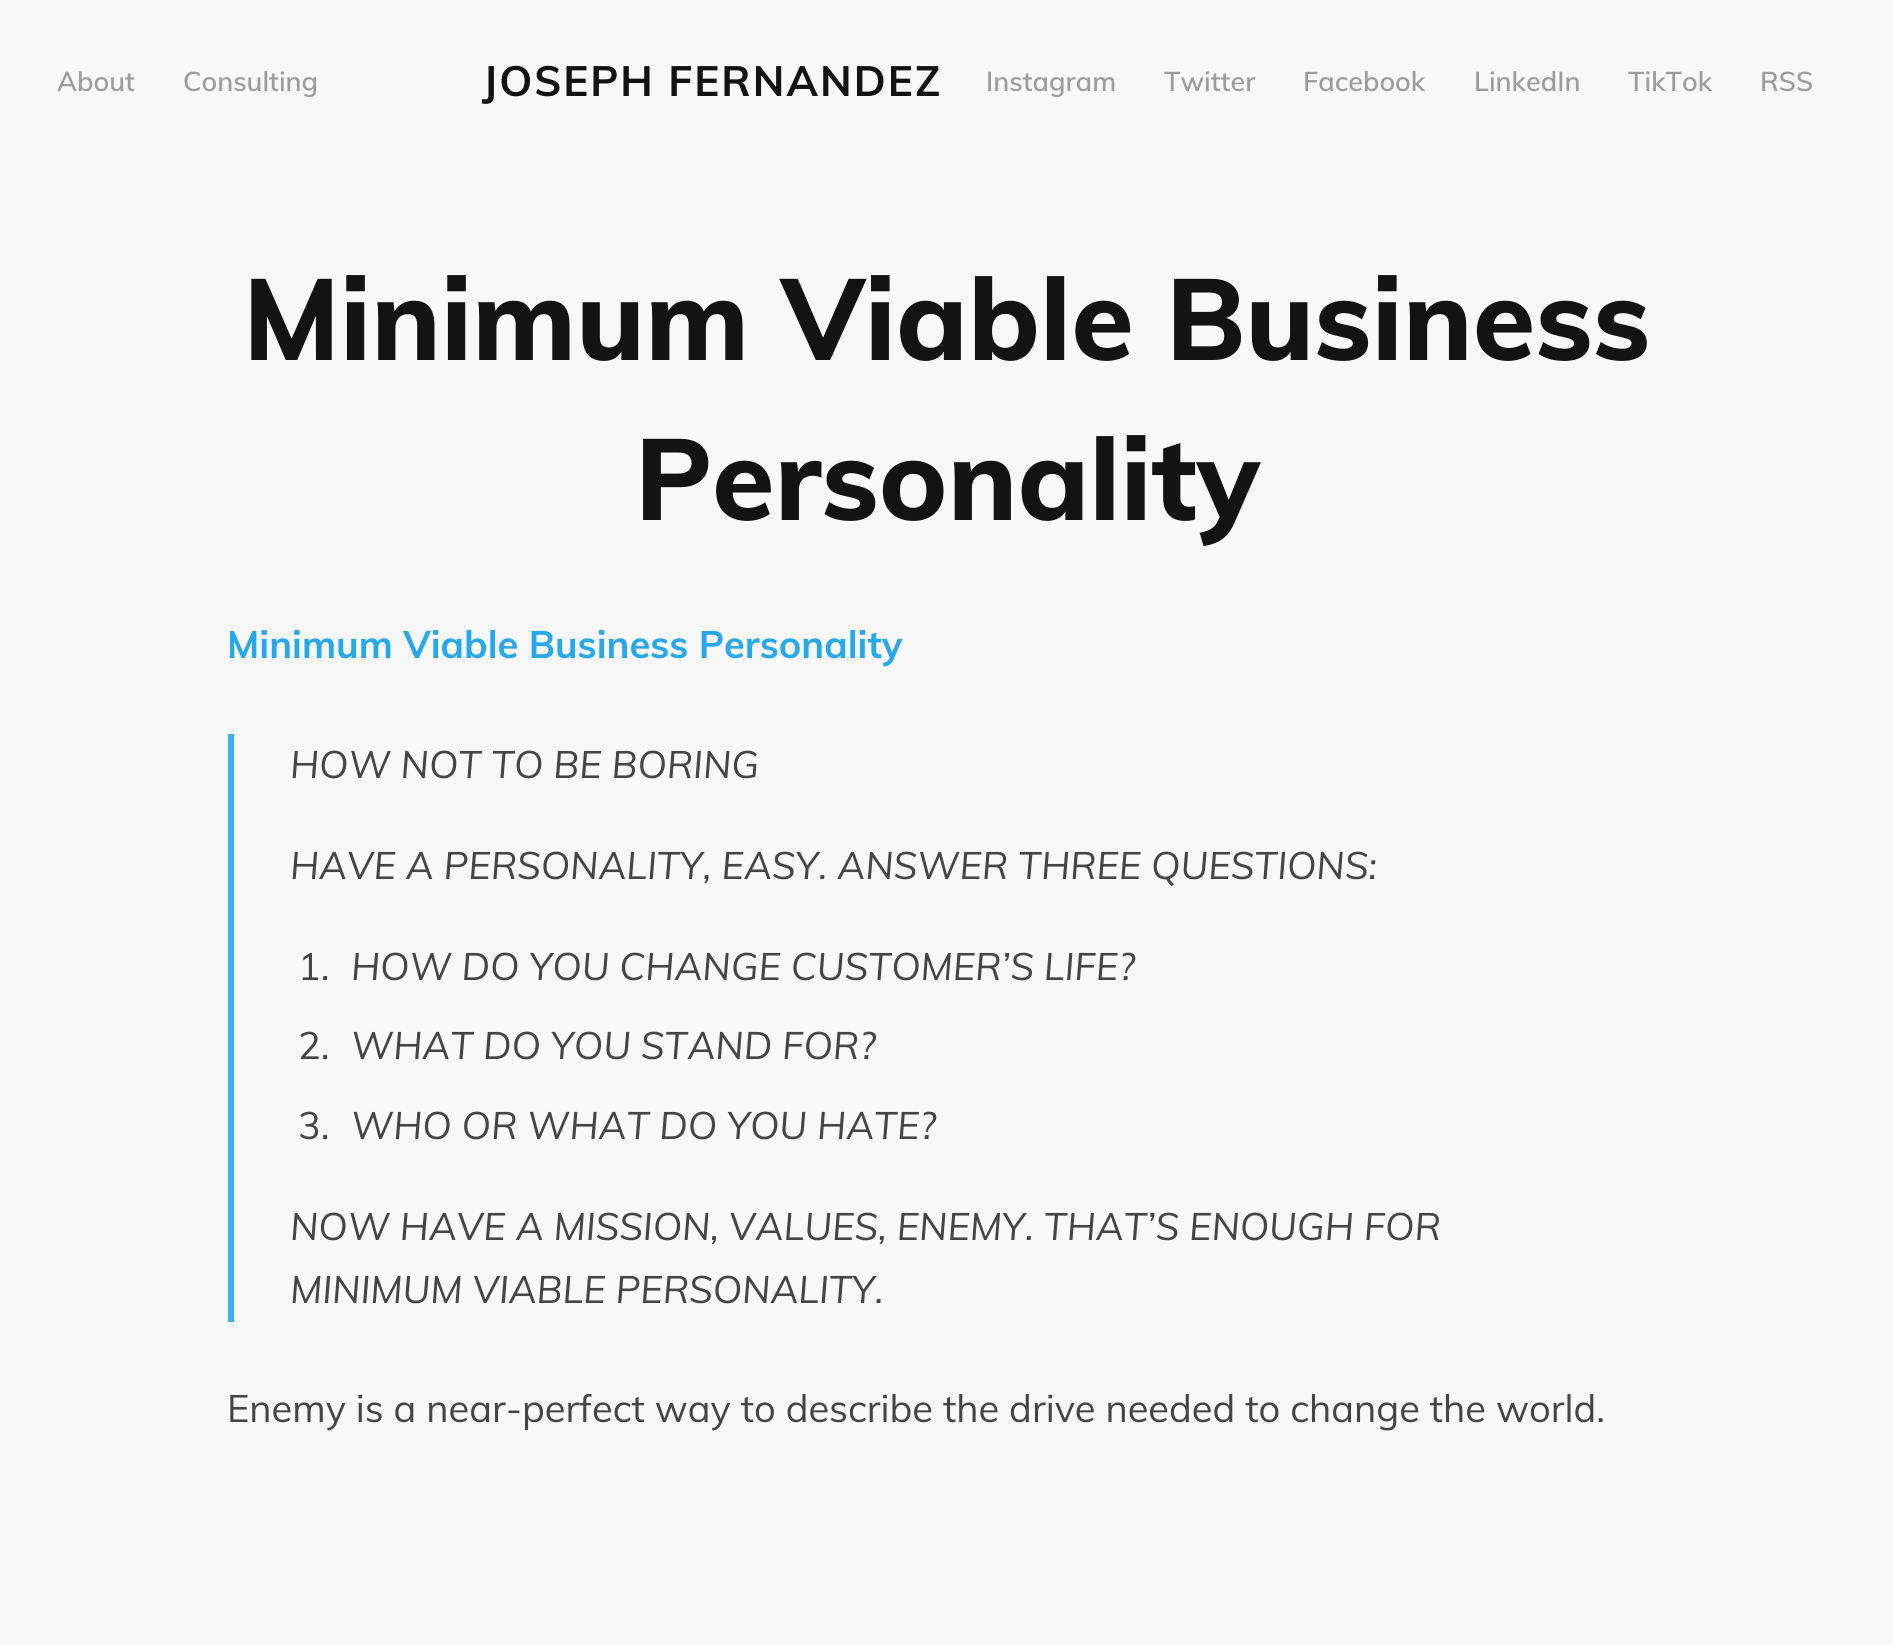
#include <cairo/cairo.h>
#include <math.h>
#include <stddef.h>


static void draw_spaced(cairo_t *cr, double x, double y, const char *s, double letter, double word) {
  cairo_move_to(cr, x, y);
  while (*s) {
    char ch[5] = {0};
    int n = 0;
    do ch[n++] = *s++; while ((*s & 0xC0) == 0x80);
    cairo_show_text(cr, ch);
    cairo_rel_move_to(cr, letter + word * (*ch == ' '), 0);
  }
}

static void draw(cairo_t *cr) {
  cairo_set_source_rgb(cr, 248 / 255.0, 248 / 255.0, 248 / 255.0);
  cairo_paint(cr);
  cairo_set_source_rgb(cr, 62 / 255.0, 176 / 255.0, 239 / 255.0);
  cairo_rectangle(cr, 228, 734, 6, 588);
  cairo_fill(cr);
  cairo_select_font_face(cr, "Muli SemiBold", CAIRO_FONT_SLANT_NORMAL, CAIRO_FONT_WEIGHT_NORMAL);
  cairo_set_font_size(cr, 27);
  cairo_set_source_rgb(cr, 156 / 255.0, 156 / 255.0, 156 / 255.0);
  cairo_move_to(cr, 57, 91);
  cairo_show_text(cr, "About");
  cairo_move_to(cr, 183, 91);
  cairo_show_text(cr, "Consulting");
  cairo_select_font_face(cr, "Muli", CAIRO_FONT_SLANT_NORMAL, CAIRO_FONT_WEIGHT_BOLD);
  cairo_set_font_size(cr, 42);
  cairo_set_source_rgb(cr, 19 / 255.0, 19 / 255.0, 19 / 255.0);
  draw_spaced(cr, 482, 96, "JOSEPH FERNANDEZ", 2, 0);
  cairo_select_font_face(cr, "Muli SemiBold", CAIRO_FONT_SLANT_NORMAL, CAIRO_FONT_WEIGHT_NORMAL);
  cairo_set_font_size(cr, 27);
  cairo_set_source_rgb(cr, 156 / 255.0, 156 / 255.0, 156 / 255.0);
  cairo_move_to(cr, 986, 91);
  cairo_show_text(cr, "Instagram");
  cairo_move_to(cr, 1164, 91);
  cairo_show_text(cr, "Twitter");
  cairo_move_to(cr, 1303, 91);
  cairo_show_text(cr, "Facebook");
  cairo_move_to(cr, 1474, 91);
  cairo_show_text(cr, "LinkedIn");
  cairo_move_to(cr, 1628, 91);
  cairo_show_text(cr, "TikTok");
  cairo_move_to(cr, 1760, 91);
  cairo_show_text(cr, "RSS");
  cairo_select_font_face(cr, "Muli ExtraBold", CAIRO_FONT_SLANT_NORMAL, CAIRO_FONT_WEIGHT_NORMAL);
  cairo_set_font_size(cr, 114);
  cairo_set_source_rgb(cr, 19 / 255.0, 19 / 255.0, 19 / 255.0);
  cairo_move_to(cr, 243, 360);
  cairo_show_text(cr, "Minimum Viable Business");
  cairo_move_to(cr, 635, 520);
  cairo_show_text(cr, "Personality");
  cairo_select_font_face(cr, "Muli", CAIRO_FONT_SLANT_NORMAL, CAIRO_FONT_WEIGHT_BOLD);
  cairo_set_font_size(cr, 38);
  cairo_set_source_rgb(cr, 38 / 255.0, 168 / 255.0, 237 / 255.0);
  cairo_move_to(cr, 227, 658);
  cairo_show_text(cr, "Minimum Viable Business Personality");
  cairo_select_font_face(cr, "Muli", CAIRO_FONT_SLANT_ITALIC, CAIRO_FONT_WEIGHT_NORMAL);
  cairo_set_source_rgb(cr, 69 / 255.0, 69 / 255.0, 69 / 255.0);
  cairo_move_to(cr, 290, 778);
  cairo_show_text(cr, "HOW NOT TO BE BORING");
  cairo_move_to(cr, 290, 879);
  cairo_show_text(cr, "HAVE A PERSONALITY, EASY. ANSWER THREE QUESTIONS:");
  cairo_select_font_face(cr, "Muli", CAIRO_FONT_SLANT_NORMAL, CAIRO_FONT_WEIGHT_NORMAL);
  cairo_move_to(cr, 298, 980);
  cairo_show_text(cr, "1.");
  cairo_select_font_face(cr, "Muli", CAIRO_FONT_SLANT_ITALIC, CAIRO_FONT_WEIGHT_NORMAL);
  cairo_move_to(cr, 351, 980);
  cairo_show_text(cr, "HOW DO YOU CHANGE CUSTOMER’S LIFE?");
  cairo_select_font_face(cr, "Muli", CAIRO_FONT_SLANT_NORMAL, CAIRO_FONT_WEIGHT_NORMAL);
  cairo_move_to(cr, 298, 1059);
  cairo_show_text(cr, "2.");
  cairo_select_font_face(cr, "Muli", CAIRO_FONT_SLANT_ITALIC, CAIRO_FONT_WEIGHT_NORMAL);
  cairo_move_to(cr, 351, 1059);
  cairo_show_text(cr, "WHAT DO YOU STAND FOR?");
  cairo_select_font_face(cr, "Muli", CAIRO_FONT_SLANT_NORMAL, CAIRO_FONT_WEIGHT_NORMAL);
  cairo_move_to(cr, 298, 1139);
  cairo_show_text(cr, "3.");
  cairo_select_font_face(cr, "Muli", CAIRO_FONT_SLANT_ITALIC, CAIRO_FONT_WEIGHT_NORMAL);
  cairo_move_to(cr, 351, 1139);
  cairo_show_text(cr, "WHO OR WHAT DO YOU HATE?");
  cairo_move_to(cr, 290, 1240);
  cairo_show_text(cr, "NOW HAVE A MISSION, VALUES, ENEMY. THAT’S ENOUGH FOR");
  cairo_move_to(cr, 290, 1303);
  cairo_show_text(cr, "MINIMUM VIABLE PERSONALITY.");
  cairo_select_font_face(cr, "Muli", CAIRO_FONT_SLANT_NORMAL, CAIRO_FONT_WEIGHT_NORMAL);
  cairo_move_to(cr, 227, 1422);
  cairo_show_text(cr, "Enemy is a near-perfect way to describe the drive needed to change the world.");
}

int main(void) {
  cairo_surface_t *surface = cairo_image_surface_create(CAIRO_FORMAT_RGB24, 1893, 1645);
  cairo_t *cr = cairo_create(surface);
  cairo_font_options_t *options = cairo_font_options_create();
  cairo_font_options_set_hint_metrics(options, CAIRO_HINT_METRICS_OFF);
  cairo_font_options_set_hint_style(options, CAIRO_HINT_STYLE_NONE);
  cairo_set_font_options(cr, options);
  cairo_set_miter_limit(cr, 4);
  draw(cr);
  cairo_surface_write_to_png(surface, "out.png");
  cairo_font_options_destroy(options);
  cairo_destroy(cr);
  cairo_surface_destroy(surface);
  return 0;
}
